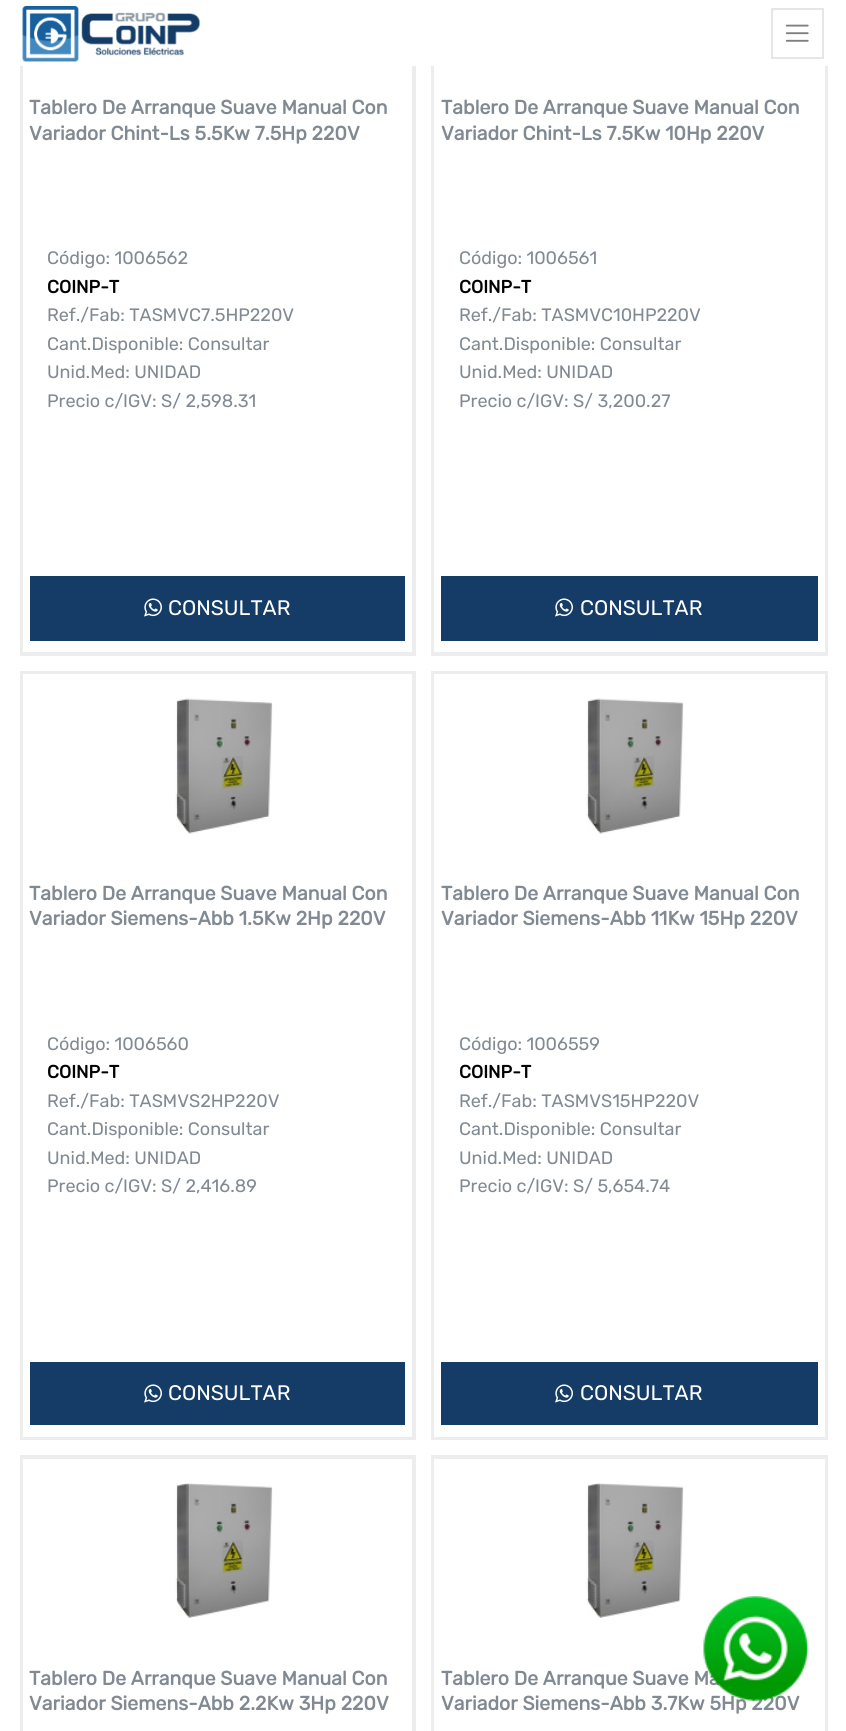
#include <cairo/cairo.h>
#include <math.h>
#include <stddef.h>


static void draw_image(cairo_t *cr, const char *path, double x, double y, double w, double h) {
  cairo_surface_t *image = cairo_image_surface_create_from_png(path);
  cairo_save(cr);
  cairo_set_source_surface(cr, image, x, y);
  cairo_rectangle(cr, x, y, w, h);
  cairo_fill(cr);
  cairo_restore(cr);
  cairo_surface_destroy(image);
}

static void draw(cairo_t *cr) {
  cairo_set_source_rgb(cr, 1, 1, 1);
  cairo_paint(cr);
  cairo_rectangle(cr, 21, -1, 394, 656);
  cairo_set_source_rgb(cr, 237 / 255.0, 237 / 255.0, 237 / 255.0);
  cairo_stroke(cr);
  cairo_rectangle(cr, 22, -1, 391, 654);
  cairo_stroke(cr);
  cairo_rectangle(cr, 432, -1, 395, 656);
  cairo_stroke(cr);
  cairo_rectangle(cr, 433, -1, 393, 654);
  cairo_stroke(cr);
  cairo_set_source_rgb(cr, 1, 1, 1);
  cairo_rectangle(cr, 20, 0, 808, 66);
  cairo_fill(cr);
  draw_image(cr, "images/1.png", 22, 5, 178, 57);
  cairo_rectangle(cr, 772, 9, 51, 49);
  cairo_set_source_rgb(cr, 230 / 255.0, 230 / 255.0, 230 / 255.0);
  cairo_stroke(cr);
  draw_image(cr, "images/2.png", 785, 24, 24, 18);
  cairo_set_source_rgb(cr, 20 / 255.0, 60 / 255.0, 103 / 255.0);
  cairo_rectangle(cr, 30, 576, 375, 65);
  cairo_fill(cr);
  draw_image(cr, "images/3.png", 144, 598, 18, 19);
  cairo_rectangle(cr, 441, 576, 377, 65);
  cairo_fill(cr);
  draw_image(cr, "images/3.png", 555, 598, 18, 19);
  cairo_rectangle(cr, 21, 672, 394, 767);
  cairo_set_source_rgb(cr, 237 / 255.0, 237 / 255.0, 237 / 255.0);
  cairo_stroke(cr);
  cairo_rectangle(cr, 22, 673, 391, 765);
  cairo_stroke(cr);
  draw_image(cr, "images/4.png", 175, 698, 98, 136);
  cairo_set_source_rgb(cr, 20 / 255.0, 60 / 255.0, 103 / 255.0);
  cairo_rectangle(cr, 30, 1362, 375, 63);
  cairo_fill(cr);
  draw_image(cr, "images/3.png", 144, 1384, 18, 19);
  cairo_rectangle(cr, 432, 672, 395, 767);
  cairo_set_source_rgb(cr, 237 / 255.0, 237 / 255.0, 237 / 255.0);
  cairo_stroke(cr);
  cairo_rectangle(cr, 433, 673, 393, 765);
  cairo_stroke(cr);
  draw_image(cr, "images/4.png", 586, 698, 98, 136);
  cairo_set_source_rgb(cr, 20 / 255.0, 60 / 255.0, 103 / 255.0);
  cairo_rectangle(cr, 441, 1362, 377, 63);
  cairo_fill(cr);
  draw_image(cr, "images/3.png", 555, 1384, 18, 19);
  cairo_rectangle(cr, 21, 1456, 394, 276);
  cairo_set_source_rgb(cr, 237 / 255.0, 237 / 255.0, 237 / 255.0);
  cairo_stroke(cr);
  cairo_rectangle(cr, 22, 1458, 391, 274);
  cairo_stroke(cr);
  draw_image(cr, "images/5.png", 175, 1483, 98, 135);
  cairo_rectangle(cr, 432, 1456, 395, 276);
  cairo_stroke(cr);
  cairo_rectangle(cr, 433, 1458, 393, 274);
  cairo_stroke(cr);
  draw_image(cr, "images/5.png", 586, 1483, 98, 135);
  cairo_select_font_face(cr, "Rubik", CAIRO_FONT_SLANT_NORMAL, CAIRO_FONT_WEIGHT_BOLD);
  cairo_set_font_size(cr, 19.5);
  cairo_set_source_rgb(cr, 129 / 255.0, 138 / 255.0, 147 / 255.0);
  cairo_move_to(cr, 29, 114);
  cairo_show_text(cr, "Tablero De Arranque Suave Manual Con");
  cairo_move_to(cr, 29, 140);
  cairo_show_text(cr, "Variador Chint-Ls 5.5Kw 7.5Hp 220V");
  cairo_select_font_face(cr, "Rubik Light", CAIRO_FONT_SLANT_NORMAL, CAIRO_FONT_WEIGHT_NORMAL);
  cairo_set_font_size(cr, 18);
  cairo_move_to(cr, 47, 264);
  cairo_show_text(cr, "Código: 1006562");
  cairo_select_font_face(cr, "Rubik", CAIRO_FONT_SLANT_NORMAL, CAIRO_FONT_WEIGHT_BOLD);
  cairo_set_source_rgb(cr, 0, 0, 0);
  cairo_move_to(cr, 47, 293);
  cairo_show_text(cr, "COINP-T");
  cairo_select_font_face(cr, "Rubik Light", CAIRO_FONT_SLANT_NORMAL, CAIRO_FONT_WEIGHT_NORMAL);
  cairo_set_source_rgb(cr, 129 / 255.0, 138 / 255.0, 147 / 255.0);
  cairo_move_to(cr, 47, 321);
  cairo_show_text(cr, "Ref./Fab: TASMVC7.5HP220V");
  cairo_move_to(cr, 47, 350);
  cairo_show_text(cr, "Cant.Disponible: Consultar");
  cairo_move_to(cr, 47, 378);
  cairo_show_text(cr, "Unid.Med: UNIDAD");
  cairo_move_to(cr, 47, 407);
  cairo_show_text(cr, "Precio c/IGV: S/ 2,598.31");
  cairo_set_font_size(cr, 21);
  cairo_set_source_rgb(cr, 1, 1, 1);
  cairo_move_to(cr, 168, 615);
  cairo_show_text(cr, "CONSULTAR");
  cairo_select_font_face(cr, "Rubik", CAIRO_FONT_SLANT_NORMAL, CAIRO_FONT_WEIGHT_BOLD);
  cairo_set_font_size(cr, 19.5);
  cairo_set_source_rgb(cr, 129 / 255.0, 138 / 255.0, 147 / 255.0);
  cairo_move_to(cr, 441, 114);
  cairo_show_text(cr, "Tablero De Arranque Suave Manual Con");
  cairo_move_to(cr, 441, 140);
  cairo_show_text(cr, "Variador Chint-Ls 7.5Kw 10Hp 220V");
  cairo_select_font_face(cr, "Rubik Light", CAIRO_FONT_SLANT_NORMAL, CAIRO_FONT_WEIGHT_NORMAL);
  cairo_set_font_size(cr, 18);
  cairo_move_to(cr, 459, 264);
  cairo_show_text(cr, "Código: 1006561");
  cairo_select_font_face(cr, "Rubik", CAIRO_FONT_SLANT_NORMAL, CAIRO_FONT_WEIGHT_BOLD);
  cairo_set_source_rgb(cr, 0, 0, 0);
  cairo_move_to(cr, 459, 293);
  cairo_show_text(cr, "COINP-T");
  cairo_select_font_face(cr, "Rubik Light", CAIRO_FONT_SLANT_NORMAL, CAIRO_FONT_WEIGHT_NORMAL);
  cairo_set_source_rgb(cr, 129 / 255.0, 138 / 255.0, 147 / 255.0);
  cairo_move_to(cr, 459, 321);
  cairo_show_text(cr, "Ref./Fab: TASMVC10HP220V");
  cairo_move_to(cr, 459, 350);
  cairo_show_text(cr, "Cant.Disponible: Consultar");
  cairo_move_to(cr, 459, 378);
  cairo_show_text(cr, "Unid.Med: UNIDAD");
  cairo_move_to(cr, 459, 407);
  cairo_show_text(cr, "Precio c/IGV: S/ 3,200.27");
  cairo_set_font_size(cr, 21);
  cairo_set_source_rgb(cr, 1, 1, 1);
  cairo_move_to(cr, 580, 615);
  cairo_show_text(cr, "CONSULTAR");
  cairo_select_font_face(cr, "Rubik", CAIRO_FONT_SLANT_NORMAL, CAIRO_FONT_WEIGHT_BOLD);
  cairo_set_font_size(cr, 19.5);
  cairo_set_source_rgb(cr, 129 / 255.0, 138 / 255.0, 147 / 255.0);
  cairo_move_to(cr, 29, 900);
  cairo_show_text(cr, "Tablero De Arranque Suave Manual Con");
  cairo_move_to(cr, 29, 925);
  cairo_show_text(cr, "Variador Siemens-Abb 1.5Kw 2Hp 220V");
  cairo_select_font_face(cr, "Rubik Light", CAIRO_FONT_SLANT_NORMAL, CAIRO_FONT_WEIGHT_NORMAL);
  cairo_set_font_size(cr, 18);
  cairo_move_to(cr, 47, 1050);
  cairo_show_text(cr, "Código: 1006560");
  cairo_select_font_face(cr, "Rubik", CAIRO_FONT_SLANT_NORMAL, CAIRO_FONT_WEIGHT_BOLD);
  cairo_set_source_rgb(cr, 0, 0, 0);
  cairo_move_to(cr, 47, 1078);
  cairo_show_text(cr, "COINP-T");
  cairo_select_font_face(cr, "Rubik Light", CAIRO_FONT_SLANT_NORMAL, CAIRO_FONT_WEIGHT_NORMAL);
  cairo_set_source_rgb(cr, 129 / 255.0, 138 / 255.0, 147 / 255.0);
  cairo_move_to(cr, 47, 1107);
  cairo_show_text(cr, "Ref./Fab: TASMVS2HP220V");
  cairo_move_to(cr, 47, 1135);
  cairo_show_text(cr, "Cant.Disponible: Consultar");
  cairo_move_to(cr, 47, 1164);
  cairo_show_text(cr, "Unid.Med: UNIDAD");
  cairo_move_to(cr, 47, 1192);
  cairo_show_text(cr, "Precio c/IGV: S/ 2,416.89");
  cairo_set_font_size(cr, 21);
  cairo_set_source_rgb(cr, 1, 1, 1);
  cairo_move_to(cr, 168, 1400);
  cairo_show_text(cr, "CONSULTAR");
  cairo_select_font_face(cr, "Rubik", CAIRO_FONT_SLANT_NORMAL, CAIRO_FONT_WEIGHT_BOLD);
  cairo_set_font_size(cr, 19.5);
  cairo_set_source_rgb(cr, 129 / 255.0, 138 / 255.0, 147 / 255.0);
  cairo_move_to(cr, 441, 900);
  cairo_show_text(cr, "Tablero De Arranque Suave Manual Con");
  cairo_move_to(cr, 441, 925);
  cairo_show_text(cr, "Variador Siemens-Abb 11Kw 15Hp 220V");
  cairo_select_font_face(cr, "Rubik Light", CAIRO_FONT_SLANT_NORMAL, CAIRO_FONT_WEIGHT_NORMAL);
  cairo_set_font_size(cr, 18);
  cairo_move_to(cr, 459, 1050);
  cairo_show_text(cr, "Código: 1006559");
  cairo_select_font_face(cr, "Rubik", CAIRO_FONT_SLANT_NORMAL, CAIRO_FONT_WEIGHT_BOLD);
  cairo_set_source_rgb(cr, 0, 0, 0);
  cairo_move_to(cr, 459, 1078);
  cairo_show_text(cr, "COINP-T");
  cairo_select_font_face(cr, "Rubik Light", CAIRO_FONT_SLANT_NORMAL, CAIRO_FONT_WEIGHT_NORMAL);
  cairo_set_source_rgb(cr, 129 / 255.0, 138 / 255.0, 147 / 255.0);
  cairo_move_to(cr, 459, 1107);
  cairo_show_text(cr, "Ref./Fab: TASMVS15HP220V");
  cairo_move_to(cr, 459, 1135);
  cairo_show_text(cr, "Cant.Disponible: Consultar");
  cairo_move_to(cr, 459, 1164);
  cairo_show_text(cr, "Unid.Med: UNIDAD");
  cairo_move_to(cr, 459, 1192);
  cairo_show_text(cr, "Precio c/IGV: S/ 5,654.74");
  cairo_set_font_size(cr, 21);
  cairo_set_source_rgb(cr, 1, 1, 1);
  cairo_move_to(cr, 580, 1400);
  cairo_show_text(cr, "CONSULTAR");
  cairo_select_font_face(cr, "Rubik", CAIRO_FONT_SLANT_NORMAL, CAIRO_FONT_WEIGHT_BOLD);
  cairo_set_font_size(cr, 19.5);
  cairo_set_source_rgb(cr, 129 / 255.0, 138 / 255.0, 147 / 255.0);
  cairo_move_to(cr, 29, 1685);
  cairo_show_text(cr, "Tablero De Arranque Suave Manual Con");
  cairo_move_to(cr, 29, 1710);
  cairo_show_text(cr, "Variador Siemens-Abb 2.2Kw 3Hp 220V");
  cairo_move_to(cr, 441, 1685);
  cairo_show_text(cr, "Tablero De Arranque Suave Ma");
  cairo_move_to(cr, 441, 1710);
  cairo_show_text(cr, "Variador Siemens-Abb 3.7Kw 5Hp 220V");
  draw_image(cr, "images/6.png", 703, 1596, 106, 105);
}

int main(void) {
  cairo_surface_t *surface = cairo_image_surface_create(CAIRO_FORMAT_RGB24, 846, 1731);
  cairo_t *cr = cairo_create(surface);
  cairo_font_options_t *options = cairo_font_options_create();
  cairo_font_options_set_hint_metrics(options, CAIRO_HINT_METRICS_OFF);
  cairo_font_options_set_hint_style(options, CAIRO_HINT_STYLE_NONE);
  cairo_set_font_options(cr, options);
  cairo_set_miter_limit(cr, 4);
  draw(cr);
  cairo_surface_write_to_png(surface, "out.png");
  cairo_font_options_destroy(options);
  cairo_destroy(cr);
  cairo_surface_destroy(surface);
  return 0;
}
